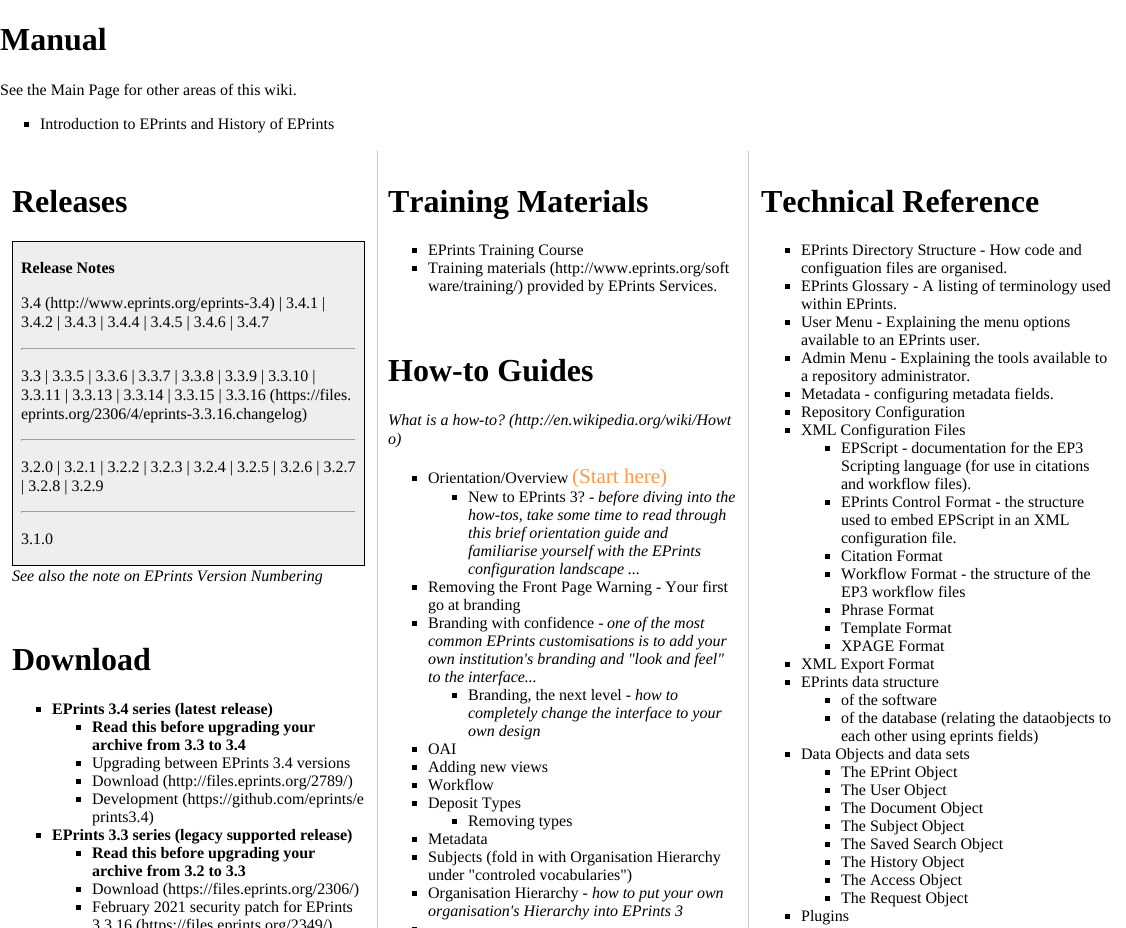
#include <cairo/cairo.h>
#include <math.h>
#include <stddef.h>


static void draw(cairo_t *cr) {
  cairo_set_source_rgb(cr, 1, 1, 1);
  cairo_paint(cr);
  cairo_set_source_rgb(cr, 0, 0, 0);
  cairo_rectangle(cr, 24, 122, 5, 5);
  cairo_fill(cr);
  cairo_set_source_rgb(cr, 238 / 255.0, 238 / 255.0, 238 / 255.0);
  cairo_rectangle(cr, 12.5, 241.5, 352, 324);
  cairo_fill_preserve(cr);
  cairo_set_source_rgb(cr, 0, 0, 0);
  cairo_set_line_width(cr, 1);
  cairo_stroke(cr);
  cairo_set_source_rgb(cr, 159 / 255.0, 159 / 255.0, 159 / 255.0);
  cairo_rectangle(cr, 21, 348, 335, 1);
  cairo_fill(cr);
  cairo_set_source_rgb(cr, 238 / 255.0, 238 / 255.0, 238 / 255.0);
  cairo_rectangle(cr, 355, 348, 1, 2);
  cairo_fill(cr);
  cairo_set_source_rgb(cr, 159 / 255.0, 159 / 255.0, 159 / 255.0);
  cairo_rectangle(cr, 21, 348, 1, 2);
  cairo_fill(cr);
  cairo_rectangle(cr, 21, 439, 335, 1);
  cairo_fill(cr);
  cairo_set_source_rgb(cr, 238 / 255.0, 238 / 255.0, 238 / 255.0);
  cairo_rectangle(cr, 355, 439, 1, 2);
  cairo_fill(cr);
  cairo_set_source_rgb(cr, 159 / 255.0, 159 / 255.0, 159 / 255.0);
  cairo_rectangle(cr, 21, 439, 1, 2);
  cairo_fill(cr);
  cairo_rectangle(cr, 21, 511, 335, 1);
  cairo_fill(cr);
  cairo_set_source_rgb(cr, 238 / 255.0, 238 / 255.0, 238 / 255.0);
  cairo_rectangle(cr, 355, 511, 1, 2);
  cairo_fill(cr);
  cairo_set_source_rgb(cr, 159 / 255.0, 159 / 255.0, 159 / 255.0);
  cairo_rectangle(cr, 21, 511, 1, 2);
  cairo_fill(cr);
  cairo_set_source_rgb(cr, 0, 0, 0);
  cairo_rectangle(cr, 36, 707, 5, 5);
  cairo_fill(cr);
  cairo_rectangle(cr, 76, 725, 5, 5);
  cairo_fill(cr);
  cairo_rectangle(cr, 76, 761, 5, 5);
  cairo_fill(cr);
  cairo_rectangle(cr, 76, 779, 5, 5);
  cairo_fill(cr);
  cairo_rectangle(cr, 76, 797, 5, 5);
  cairo_fill(cr);
  cairo_rectangle(cr, 36, 833, 5, 5);
  cairo_fill(cr);
  cairo_rectangle(cr, 76, 851, 5, 5);
  cairo_fill(cr);
  cairo_rectangle(cr, 76, 887, 5, 5);
  cairo_fill(cr);
  cairo_rectangle(cr, 76, 905, 5, 5);
  cairo_fill(cr);
  cairo_set_source_rgb(cr, 204 / 255.0, 204 / 255.0, 204 / 255.0);
  cairo_rectangle(cr, 748, 151, 1, 777);
  cairo_fill(cr);
  cairo_rectangle(cr, 377, 151, 1, 777);
  cairo_fill(cr);
  cairo_set_source_rgb(cr, 0, 0, 0);
  cairo_rectangle(cr, 412, 248, 5, 5);
  cairo_fill(cr);
  cairo_rectangle(cr, 412, 266, 5, 5);
  cairo_fill(cr);
  cairo_rectangle(cr, 412, 476, 5, 5);
  cairo_fill(cr);
  cairo_rectangle(cr, 452, 495, 5, 5);
  cairo_fill(cr);
  cairo_rectangle(cr, 412, 585, 5, 5);
  cairo_fill(cr);
  cairo_rectangle(cr, 412, 621, 5, 5);
  cairo_fill(cr);
  cairo_rectangle(cr, 452, 693, 5, 5);
  cairo_fill(cr);
  cairo_rectangle(cr, 412, 747, 5, 5);
  cairo_fill(cr);
  cairo_rectangle(cr, 412, 765, 5, 5);
  cairo_fill(cr);
  cairo_rectangle(cr, 412, 783, 5, 5);
  cairo_fill(cr);
  cairo_rectangle(cr, 412, 801, 5, 5);
  cairo_fill(cr);
  cairo_rectangle(cr, 452, 819, 5, 5);
  cairo_fill(cr);
  cairo_rectangle(cr, 412, 837, 5, 5);
  cairo_fill(cr);
  cairo_rectangle(cr, 412, 855, 5, 5);
  cairo_fill(cr);
  cairo_rectangle(cr, 412, 891, 5, 5);
  cairo_fill(cr);
  cairo_rectangle(cr, 412, 927, 5, 1);
  cairo_fill(cr);
  cairo_rectangle(cr, 785, 248, 5, 5);
  cairo_fill(cr);
  cairo_rectangle(cr, 785, 284, 5, 5);
  cairo_fill(cr);
  cairo_rectangle(cr, 785, 320, 5, 5);
  cairo_fill(cr);
  cairo_rectangle(cr, 785, 356, 5, 5);
  cairo_fill(cr);
  cairo_rectangle(cr, 785, 392, 5, 5);
  cairo_fill(cr);
  cairo_rectangle(cr, 785, 410, 5, 5);
  cairo_fill(cr);
  cairo_rectangle(cr, 785, 428, 5, 5);
  cairo_fill(cr);
  cairo_rectangle(cr, 825, 446, 5, 5);
  cairo_fill(cr);
  cairo_rectangle(cr, 825, 500, 5, 5);
  cairo_fill(cr);
  cairo_rectangle(cr, 825, 554, 5, 5);
  cairo_fill(cr);
  cairo_rectangle(cr, 825, 572, 5, 5);
  cairo_fill(cr);
  cairo_rectangle(cr, 825, 608, 5, 5);
  cairo_fill(cr);
  cairo_rectangle(cr, 825, 626, 5, 5);
  cairo_fill(cr);
  cairo_rectangle(cr, 825, 644, 5, 5);
  cairo_fill(cr);
  cairo_rectangle(cr, 785, 662, 5, 5);
  cairo_fill(cr);
  cairo_rectangle(cr, 785, 680, 5, 5);
  cairo_fill(cr);
  cairo_rectangle(cr, 825, 698, 5, 5);
  cairo_fill(cr);
  cairo_rectangle(cr, 825, 716, 5, 5);
  cairo_fill(cr);
  cairo_rectangle(cr, 785, 752, 5, 5);
  cairo_fill(cr);
  cairo_rectangle(cr, 825, 770, 5, 5);
  cairo_fill(cr);
  cairo_rectangle(cr, 825, 788, 5, 5);
  cairo_fill(cr);
  cairo_rectangle(cr, 825, 806, 5, 5);
  cairo_fill(cr);
  cairo_rectangle(cr, 825, 824, 5, 5);
  cairo_fill(cr);
  cairo_rectangle(cr, 825, 842, 5, 5);
  cairo_fill(cr);
  cairo_rectangle(cr, 825, 860, 5, 5);
  cairo_fill(cr);
  cairo_rectangle(cr, 825, 878, 5, 5);
  cairo_fill(cr);
  cairo_rectangle(cr, 825, 896, 5, 5);
  cairo_fill(cr);
  cairo_rectangle(cr, 785, 914, 5, 5);
  cairo_fill(cr);
  cairo_select_font_face(cr, "Liberation Serif", CAIRO_FONT_SLANT_NORMAL, CAIRO_FONT_WEIGHT_BOLD);
  cairo_set_font_size(cr, 32);
  cairo_move_to(cr, 0, 50);
  cairo_show_text(cr, "Manual");
  cairo_select_font_face(cr, "Liberation Serif", CAIRO_FONT_SLANT_NORMAL, CAIRO_FONT_WEIGHT_NORMAL);
  cairo_set_font_size(cr, 16);
  cairo_move_to(cr, 0, 95);
  cairo_show_text(cr, "See the Main Page for other areas of this wiki.");
  cairo_move_to(cr, 40, 129);
  cairo_show_text(cr, "Introduction to EPrints and History of EPrints");
  cairo_select_font_face(cr, "Liberation Serif", CAIRO_FONT_SLANT_NORMAL, CAIRO_FONT_WEIGHT_BOLD);
  cairo_set_font_size(cr, 32);
  cairo_move_to(cr, 12, 212);
  cairo_show_text(cr, "Releases");
  cairo_set_font_size(cr, 16);
  cairo_move_to(cr, 21, 273);
  cairo_show_text(cr, "Release Notes");
  cairo_select_font_face(cr, "Liberation Serif", CAIRO_FONT_SLANT_NORMAL, CAIRO_FONT_WEIGHT_NORMAL);
  cairo_move_to(cr, 21, 308);
  cairo_show_text(cr, "3.4 (http://www.eprints.org/eprints-3.4) | 3.4.1 |");
  cairo_move_to(cr, 21, 327);
  cairo_show_text(cr, "3.4.2 | 3.4.3 | 3.4.4 | 3.4.5 | 3.4.6 | 3.4.7");
  cairo_move_to(cr, 21, 381);
  cairo_show_text(cr, "3.3 | 3.3.5 | 3.3.6 | 3.3.7 | 3.3.8 | 3.3.9 | 3.3.10 |");
  cairo_move_to(cr, 21, 400);
  cairo_show_text(cr, "3.3.11 | 3.3.13 | 3.3.14 | 3.3.15 | 3.3.16 (https://files.");
  cairo_move_to(cr, 21, 419);
  cairo_show_text(cr, "eprints.org/2306/4/eprints-3.3.16.changelog)");
  cairo_move_to(cr, 21, 472);
  cairo_show_text(cr, "3.2.0 | 3.2.1 | 3.2.2 | 3.2.3 | 3.2.4 | 3.2.5 | 3.2.6 | 3.2.7");
  cairo_move_to(cr, 21, 491);
  cairo_show_text(cr, "| 3.2.8 | 3.2.9");
  cairo_move_to(cr, 21, 544);
  cairo_show_text(cr, "3.1.0");
  cairo_select_font_face(cr, "Liberation Serif", CAIRO_FONT_SLANT_ITALIC, CAIRO_FONT_WEIGHT_NORMAL);
  cairo_move_to(cr, 12, 581);
  cairo_show_text(cr, "See also the note on EPrints Version Numbering");
  cairo_select_font_face(cr, "Liberation Serif", CAIRO_FONT_SLANT_NORMAL, CAIRO_FONT_WEIGHT_BOLD);
  cairo_set_font_size(cr, 32);
  cairo_move_to(cr, 12, 670);
  cairo_show_text(cr, "Download");
  cairo_set_font_size(cr, 16);
  cairo_move_to(cr, 52, 714);
  cairo_show_text(cr, "EPrints 3.4 series (latest release)");
  cairo_move_to(cr, 92, 732);
  cairo_show_text(cr, "Read this before upgrading your");
  cairo_move_to(cr, 92, 750);
  cairo_show_text(cr, "archive from 3.3 to 3.4");
  cairo_select_font_face(cr, "Liberation Serif", CAIRO_FONT_SLANT_NORMAL, CAIRO_FONT_WEIGHT_NORMAL);
  cairo_move_to(cr, 92, 768);
  cairo_show_text(cr, "Upgrading between EPrints 3.4 versions");
  cairo_move_to(cr, 92, 786);
  cairo_show_text(cr, "Download (http://files.eprints.org/2789/)");
  cairo_move_to(cr, 92, 804);
  cairo_show_text(cr, "Development (https://github.com/eprints/e");
  cairo_move_to(cr, 92, 822);
  cairo_show_text(cr, "prints3.4)");
  cairo_select_font_face(cr, "Liberation Serif", CAIRO_FONT_SLANT_NORMAL, CAIRO_FONT_WEIGHT_BOLD);
  cairo_move_to(cr, 52, 840);
  cairo_show_text(cr, "EPrints 3.3 series (legacy supported release)");
  cairo_move_to(cr, 92, 858);
  cairo_show_text(cr, "Read this before upgrading your");
  cairo_move_to(cr, 92, 876);
  cairo_show_text(cr, "archive from 3.2 to 3.3");
  cairo_select_font_face(cr, "Liberation Serif", CAIRO_FONT_SLANT_NORMAL, CAIRO_FONT_WEIGHT_NORMAL);
  cairo_move_to(cr, 92, 894);
  cairo_show_text(cr, "Download (https://files.eprints.org/2306/)");
  cairo_move_to(cr, 92, 912);
  cairo_show_text(cr, "February 2021 security patch for EPrints");
  cairo_move_to(cr, 92, 930);
  cairo_show_text(cr, "3.3.16 (https://files.eprints.org/2349/)");
  cairo_select_font_face(cr, "Liberation Serif", CAIRO_FONT_SLANT_NORMAL, CAIRO_FONT_WEIGHT_BOLD);
  cairo_set_font_size(cr, 32);
  cairo_move_to(cr, 388, 212);
  cairo_show_text(cr, "Training Materials");
  cairo_select_font_face(cr, "Liberation Serif", CAIRO_FONT_SLANT_NORMAL, CAIRO_FONT_WEIGHT_NORMAL);
  cairo_set_font_size(cr, 16);
  cairo_move_to(cr, 428, 255);
  cairo_show_text(cr, "EPrints Training Course");
  cairo_move_to(cr, 428, 273);
  cairo_show_text(cr, "Training materials (http://www.eprints.org/soft");
  cairo_move_to(cr, 428, 291);
  cairo_show_text(cr, "ware/training/) provided by EPrints Services.");
  cairo_select_font_face(cr, "Liberation Serif", CAIRO_FONT_SLANT_NORMAL, CAIRO_FONT_WEIGHT_BOLD);
  cairo_set_font_size(cr, 32);
  cairo_move_to(cr, 388, 381);
  cairo_show_text(cr, "How-to Guides");
  cairo_select_font_face(cr, "Liberation Serif", CAIRO_FONT_SLANT_ITALIC, CAIRO_FONT_WEIGHT_NORMAL);
  cairo_set_font_size(cr, 16);
  cairo_move_to(cr, 388, 425);
  cairo_show_text(cr, "What is a how-to? (http://en.wikipedia.org/wiki/Howt");
  cairo_move_to(cr, 388, 444);
  cairo_show_text(cr, "o)");
  cairo_select_font_face(cr, "Liberation Serif", CAIRO_FONT_SLANT_NORMAL, CAIRO_FONT_WEIGHT_NORMAL);
  cairo_move_to(cr, 428, 483);
  cairo_show_text(cr, "Orientation/Overview");
  cairo_set_font_size(cr, 21);
  cairo_set_source_rgb(cr, 1, 153 / 255.0, 68 / 255.0);
  cairo_move_to(cr, 572, 483);
  cairo_show_text(cr, "(Start here)");
  cairo_set_font_size(cr, 16);
  cairo_set_source_rgb(cr, 0, 0, 0);
  cairo_move_to(cr, 468, 502);
  cairo_show_text(cr, "New to EPrints 3? -");
  cairo_select_font_face(cr, "Liberation Serif", CAIRO_FONT_SLANT_ITALIC, CAIRO_FONT_WEIGHT_NORMAL);
  cairo_move_to(cr, 598, 502);
  cairo_show_text(cr, "before diving into the");
  cairo_move_to(cr, 468, 520);
  cairo_show_text(cr, "how-tos, take some time to read through");
  cairo_move_to(cr, 468, 538);
  cairo_show_text(cr, "this brief orientation guide and");
  cairo_move_to(cr, 468, 556);
  cairo_show_text(cr, "familiarise yourself with the EPrints");
  cairo_move_to(cr, 468, 574);
  cairo_show_text(cr, "configuration landscape ...");
  cairo_select_font_face(cr, "Liberation Serif", CAIRO_FONT_SLANT_NORMAL, CAIRO_FONT_WEIGHT_NORMAL);
  cairo_move_to(cr, 428, 592);
  cairo_show_text(cr, "Removing the Front Page Warning - Your first");
  cairo_move_to(cr, 428, 610);
  cairo_show_text(cr, "go at branding");
  cairo_move_to(cr, 428, 628);
  cairo_show_text(cr, "Branding with confidence -");
  cairo_select_font_face(cr, "Liberation Serif", CAIRO_FONT_SLANT_ITALIC, CAIRO_FONT_WEIGHT_NORMAL);
  cairo_move_to(cr, 607, 628);
  cairo_show_text(cr, "one of the most");
  cairo_move_to(cr, 428, 646);
  cairo_show_text(cr, "common EPrints customisations is to add your");
  cairo_move_to(cr, 428, 664);
  cairo_show_text(cr, "own institution's branding and \"look and feel\"");
  cairo_move_to(cr, 428, 682);
  cairo_show_text(cr, "to the interface...");
  cairo_select_font_face(cr, "Liberation Serif", CAIRO_FONT_SLANT_NORMAL, CAIRO_FONT_WEIGHT_NORMAL);
  cairo_move_to(cr, 468, 700);
  cairo_show_text(cr, "Branding, the next level -");
  cairo_select_font_face(cr, "Liberation Serif", CAIRO_FONT_SLANT_ITALIC, CAIRO_FONT_WEIGHT_NORMAL);
  cairo_move_to(cr, 635, 700);
  cairo_show_text(cr, "how to");
  cairo_move_to(cr, 468, 718);
  cairo_show_text(cr, "completely change the interface to your");
  cairo_move_to(cr, 468, 736);
  cairo_show_text(cr, "own design");
  cairo_select_font_face(cr, "Liberation Serif", CAIRO_FONT_SLANT_NORMAL, CAIRO_FONT_WEIGHT_NORMAL);
  cairo_move_to(cr, 428, 754);
  cairo_show_text(cr, "OAI");
  cairo_move_to(cr, 428, 772);
  cairo_show_text(cr, "Adding new views");
  cairo_move_to(cr, 428, 790);
  cairo_show_text(cr, "Workflow");
  cairo_move_to(cr, 428, 808);
  cairo_show_text(cr, "Deposit Types");
  cairo_move_to(cr, 468, 826);
  cairo_show_text(cr, "Removing types");
  cairo_move_to(cr, 428, 844);
  cairo_show_text(cr, "Metadata");
  cairo_move_to(cr, 428, 862);
  cairo_show_text(cr, "Subjects (fold in with Organisation Hierarchy");
  cairo_move_to(cr, 428, 880);
  cairo_show_text(cr, "under \"controled vocabularies\")");
  cairo_move_to(cr, 428, 898);
  cairo_show_text(cr, "Organisation Hierarchy -");
  cairo_select_font_face(cr, "Liberation Serif", CAIRO_FONT_SLANT_ITALIC, CAIRO_FONT_WEIGHT_NORMAL);
  cairo_move_to(cr, 592, 898);
  cairo_show_text(cr, "how to put your own");
  cairo_move_to(cr, 428, 916);
  cairo_show_text(cr, "organisation's Hierarchy into EPrints 3");
  cairo_select_font_face(cr, "Liberation Serif", CAIRO_FONT_SLANT_NORMAL, CAIRO_FONT_WEIGHT_BOLD);
  cairo_set_font_size(cr, 32);
  cairo_move_to(cr, 761, 212);
  cairo_show_text(cr, "Technical Reference");
  cairo_select_font_face(cr, "Liberation Serif", CAIRO_FONT_SLANT_NORMAL, CAIRO_FONT_WEIGHT_NORMAL);
  cairo_set_font_size(cr, 16);
  cairo_move_to(cr, 801, 255);
  cairo_show_text(cr, "EPrints Directory Structure - How code and");
  cairo_move_to(cr, 801, 273);
  cairo_show_text(cr, "configuation files are organised.");
  cairo_move_to(cr, 801, 291);
  cairo_show_text(cr, "EPrints Glossary - A listing of terminology used");
  cairo_move_to(cr, 801, 309);
  cairo_show_text(cr, "within EPrints.");
  cairo_move_to(cr, 801, 327);
  cairo_show_text(cr, "User Menu - Explaining the menu options");
  cairo_move_to(cr, 801, 345);
  cairo_show_text(cr, "available to an EPrints user.");
  cairo_move_to(cr, 801, 363);
  cairo_show_text(cr, "Admin Menu - Explaining the tools available to");
  cairo_move_to(cr, 801, 381);
  cairo_show_text(cr, "a repository administrator.");
  cairo_move_to(cr, 801, 399);
  cairo_show_text(cr, "Metadata - configuring metadata fields.");
  cairo_move_to(cr, 801, 417);
  cairo_show_text(cr, "Repository Configuration");
  cairo_move_to(cr, 801, 435);
  cairo_show_text(cr, "XML Configuration Files");
  cairo_move_to(cr, 841, 453);
  cairo_show_text(cr, "EPScript - documentation for the EP3");
  cairo_move_to(cr, 841, 471);
  cairo_show_text(cr, "Scripting language (for use in citations");
  cairo_move_to(cr, 841, 489);
  cairo_show_text(cr, "and workflow files).");
  cairo_move_to(cr, 841, 507);
  cairo_show_text(cr, "EPrints Control Format - the structure");
  cairo_move_to(cr, 841, 525);
  cairo_show_text(cr, "used to embed EPScript in an XML");
  cairo_move_to(cr, 841, 543);
  cairo_show_text(cr, "configuration file.");
  cairo_move_to(cr, 841, 561);
  cairo_show_text(cr, "Citation Format");
  cairo_move_to(cr, 841, 579);
  cairo_show_text(cr, "Workflow Format - the structure of the");
  cairo_move_to(cr, 841, 597);
  cairo_show_text(cr, "EP3 workflow files");
  cairo_move_to(cr, 841, 615);
  cairo_show_text(cr, "Phrase Format");
  cairo_move_to(cr, 841, 633);
  cairo_show_text(cr, "Template Format");
  cairo_move_to(cr, 841, 651);
  cairo_show_text(cr, "XPAGE Format");
  cairo_move_to(cr, 801, 669);
  cairo_show_text(cr, "XML Export Format");
  cairo_move_to(cr, 801, 687);
  cairo_show_text(cr, "EPrints data structure");
  cairo_move_to(cr, 841, 705);
  cairo_show_text(cr, "of the software");
  cairo_move_to(cr, 841, 723);
  cairo_show_text(cr, "of the database (relating the dataobjects to");
  cairo_move_to(cr, 841, 741);
  cairo_show_text(cr, "each other using eprints fields)");
  cairo_move_to(cr, 801, 759);
  cairo_show_text(cr, "Data Objects and data sets");
  cairo_move_to(cr, 841, 777);
  cairo_show_text(cr, "The EPrint Object");
  cairo_move_to(cr, 841, 795);
  cairo_show_text(cr, "The User Object");
  cairo_move_to(cr, 841, 813);
  cairo_show_text(cr, "The Document Object");
  cairo_move_to(cr, 841, 831);
  cairo_show_text(cr, "The Subject Object");
  cairo_move_to(cr, 841, 849);
  cairo_show_text(cr, "The Saved Search Object");
  cairo_move_to(cr, 841, 867);
  cairo_show_text(cr, "The History Object");
  cairo_move_to(cr, 841, 885);
  cairo_show_text(cr, "The Access Object");
  cairo_move_to(cr, 841, 903);
  cairo_show_text(cr, "The Request Object");
  cairo_move_to(cr, 801, 921);
  cairo_show_text(cr, "Plugins");
}

int main(void) {
  cairo_surface_t *surface = cairo_image_surface_create(CAIRO_FORMAT_RGB24, 1126, 928);
  cairo_t *cr = cairo_create(surface);
  cairo_font_options_t *options = cairo_font_options_create();
  cairo_font_options_set_hint_metrics(options, CAIRO_HINT_METRICS_OFF);
  cairo_font_options_set_hint_style(options, CAIRO_HINT_STYLE_NONE);
  cairo_set_font_options(cr, options);
  cairo_set_miter_limit(cr, 4);
  draw(cr);
  cairo_surface_write_to_png(surface, "out.png");
  cairo_font_options_destroy(options);
  cairo_destroy(cr);
  cairo_surface_destroy(surface);
  return 0;
}
